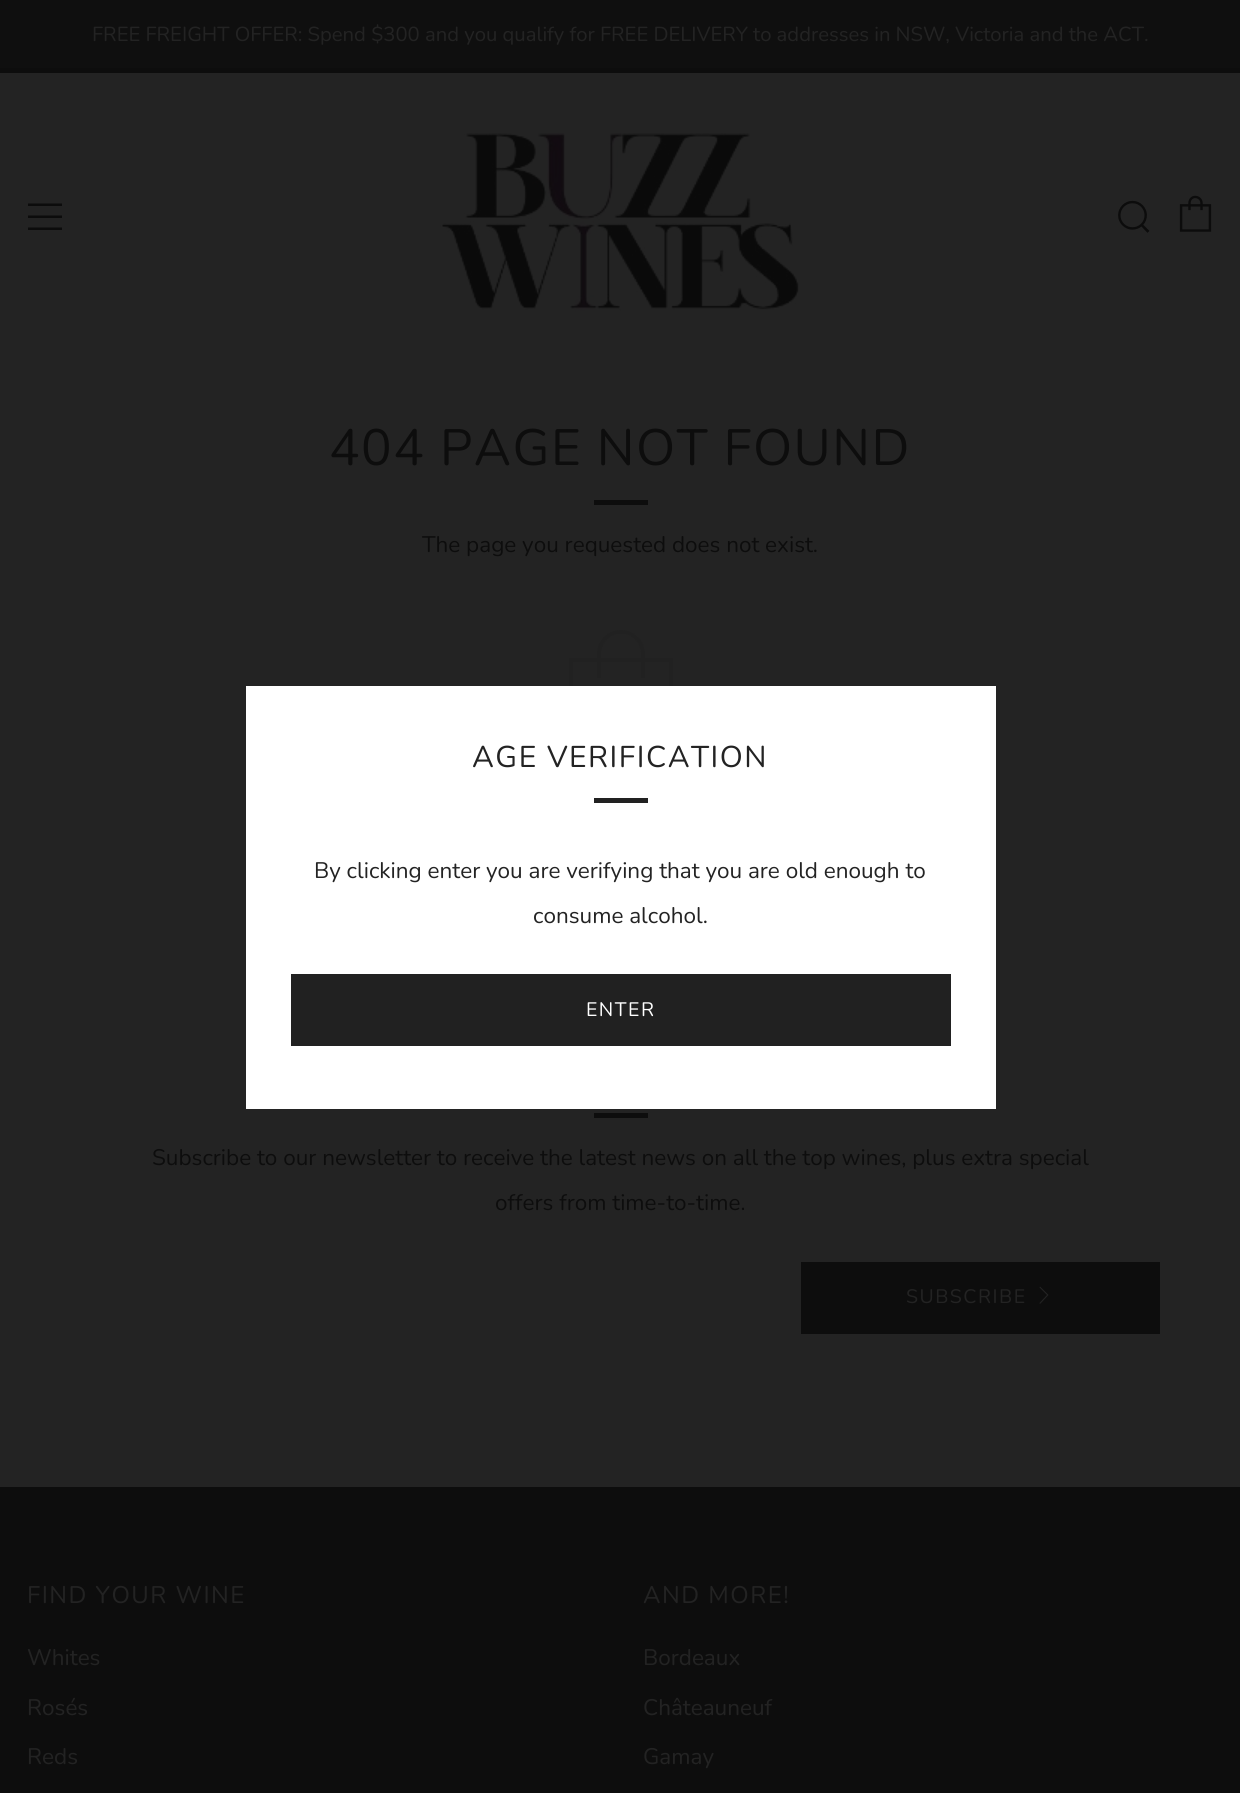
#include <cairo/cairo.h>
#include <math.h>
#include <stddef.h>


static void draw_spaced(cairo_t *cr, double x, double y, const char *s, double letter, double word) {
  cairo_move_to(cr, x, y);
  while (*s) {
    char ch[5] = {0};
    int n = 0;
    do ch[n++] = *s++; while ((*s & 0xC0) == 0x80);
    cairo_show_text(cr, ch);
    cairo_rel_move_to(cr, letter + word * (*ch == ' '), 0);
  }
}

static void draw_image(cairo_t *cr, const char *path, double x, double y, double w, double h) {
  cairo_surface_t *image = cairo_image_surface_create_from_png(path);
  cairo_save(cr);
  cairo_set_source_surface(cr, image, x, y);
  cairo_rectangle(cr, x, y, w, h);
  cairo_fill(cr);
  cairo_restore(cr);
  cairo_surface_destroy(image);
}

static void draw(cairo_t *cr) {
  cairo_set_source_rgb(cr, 35 / 255.0, 35 / 255.0, 35 / 255.0);
  cairo_paint(cr);
  cairo_set_source_rgb(cr, 15 / 255.0, 15 / 255.0, 15 / 255.0);
  cairo_rectangle(cr, 0, 0, 1240, 68);
  cairo_fill(cr);
  cairo_set_source_rgb(cr, 13 / 255.0, 13 / 255.0, 13 / 255.0);
  cairo_rectangle(cr, 0, 68, 1240, 5);
  cairo_fill(cr);
  cairo_set_source_rgb(cr, 12 / 255.0, 12 / 255.0, 12 / 255.0);
  cairo_new_path(cr);
  cairo_move_to(cr, 28, 206);
  cairo_line_to(cr, 62, 206);
  cairo_line_to(cr, 62, 203.5);
  cairo_line_to(cr, 28, 203.5);
  cairo_close_path(cr);
  cairo_move_to(cr, 28, 230);
  cairo_line_to(cr, 62, 230);
  cairo_line_to(cr, 62, 227.5);
  cairo_line_to(cr, 28, 227.5);
  cairo_close_path(cr);
  cairo_move_to(cr, 28, 218);
  cairo_line_to(cr, 62, 218);
  cairo_line_to(cr, 62, 215.5);
  cairo_line_to(cr, 28, 215.5);
  cairo_close_path(cr);
  cairo_fill(cr);
  draw_image(cr, "images/1.png", 439, 126, 360, 189);
  draw_image(cr, "images/2.png", 1118, 200, 32, 33);
  draw_image(cr, "images/3.png", 1179, 195, 33, 37);
  cairo_set_source_rgb(cr, 13 / 255.0, 13 / 255.0, 13 / 255.0);
  cairo_rectangle(cr, 594, 500, 54, 5);
  cairo_fill(cr);
  draw_image(cr, "images/4.png", 569, 630, 104, 56);
  cairo_rectangle(cr, 594, 1113, 54, 5);
  cairo_fill(cr);
  cairo_rectangle(cr, 801, 1262, 359, 72);
  cairo_fill(cr);
  cairo_set_source_rgb(cr, 35 / 255.0, 35 / 255.0, 35 / 255.0);
  cairo_new_path(cr);
  cairo_move_to(cr, 1039.5, 1303);
  cairo_line_to(cr, 1040, 1304);
  cairo_line_to(cr, 1048.5, 1295);
  cairo_line_to(cr, 1040, 1286.5);
  cairo_line_to(cr, 1039.5, 1287.5);
  cairo_line_to(cr, 1047, 1295);
  cairo_close_path(cr);
  cairo_fill(cr);
  cairo_set_source_rgb(cr, 13 / 255.0, 13 / 255.0, 13 / 255.0);
  cairo_rectangle(cr, 0, 1487, 1240, 306);
  cairo_fill(cr);
  cairo_set_source_rgb(cr, 1, 1, 1);
  cairo_rectangle(cr, 246, 686, 750, 423);
  cairo_fill(cr);
  cairo_set_source_rgb(cr, 33 / 255.0, 33 / 255.0, 33 / 255.0);
  cairo_rectangle(cr, 594, 798, 54, 5);
  cairo_fill(cr);
  cairo_rectangle(cr, 291, 974, 660, 72);
  cairo_fill(cr);
  cairo_select_font_face(cr, "Nunito", CAIRO_FONT_SLANT_NORMAL, CAIRO_FONT_WEIGHT_NORMAL);
  cairo_set_font_size(cr, 20.25);
  cairo_set_source_rgb(cr, 35 / 255.0, 35 / 255.0, 35 / 255.0);
  cairo_move_to(cr, 92, 41);
  cairo_show_text(cr, "FREE FREIGHT OFFER: Spend $300 and you qualify for FREE DELIVERY to addresses in NSW, Victoria and the ACT.");
  cairo_set_font_size(cr, 51);
  cairo_set_source_rgb(cr, 13 / 255.0, 13 / 255.0, 13 / 255.0);
  draw_spaced(cr, 329, 465, "404 PAGE NOT FOUND", 1.5, 0);
  cairo_set_font_size(cr, 22.5);
  cairo_move_to(cr, 422, 552);
  cairo_show_text(cr, "The page you requested does not exist.");
  cairo_move_to(cr, 152, 1165);
  cairo_show_text(cr, "Subscribe to our newsletter to receive the latest news on all the top wines, plus extra special");
  cairo_move_to(cr, 495, 1210);
  cairo_show_text(cr, "offers from time-to-time.");
  cairo_set_font_size(cr, 19.5);
  cairo_set_source_rgb(cr, 35 / 255.0, 35 / 255.0, 35 / 255.0);
  draw_spaced(cr, 906, 1303, "SUBSCRIBE", 1.5, 0);
  cairo_set_font_size(cr, 24);
  draw_spaced(cr, 27, 1603, "FIND YOUR WINE", 1.5, 0);
  cairo_set_font_size(cr, 22.5);
  cairo_move_to(cr, 27, 1665);
  cairo_show_text(cr, "Whites");
  cairo_move_to(cr, 27, 1715);
  cairo_show_text(cr, "Rosés");
  cairo_move_to(cr, 27, 1764);
  cairo_show_text(cr, "Reds");
  cairo_set_font_size(cr, 24);
  draw_spaced(cr, 643, 1603, "AND MORE!", 1.5, 0);
  cairo_set_font_size(cr, 22.5);
  cairo_move_to(cr, 643, 1665);
  cairo_show_text(cr, "Bordeaux");
  cairo_move_to(cr, 643, 1715);
  cairo_show_text(cr, "Châteauneuf");
  cairo_move_to(cr, 643, 1764);
  cairo_show_text(cr, "Gamay");
  cairo_set_font_size(cr, 30);
  draw_spaced(cr, 472, 767, "AGE VERIFICATION", 1.5, 0);
  cairo_set_font_size(cr, 22.5);
  cairo_move_to(cr, 314, 878);
  cairo_show_text(cr, "By clicking enter you are verifying that you are old enough to");
  cairo_move_to(cr, 533, 923);
  cairo_show_text(cr, "consume alcohol.");
  cairo_set_font_size(cr, 19.5);
  cairo_set_source_rgb(cr, 1, 1, 1);
  draw_spaced(cr, 586, 1016, "ENTER", 1.5, 0);
}

int main(void) {
  cairo_surface_t *surface = cairo_image_surface_create(CAIRO_FORMAT_RGB24, 1240, 1793);
  cairo_t *cr = cairo_create(surface);
  cairo_font_options_t *options = cairo_font_options_create();
  cairo_font_options_set_hint_metrics(options, CAIRO_HINT_METRICS_OFF);
  cairo_font_options_set_hint_style(options, CAIRO_HINT_STYLE_NONE);
  cairo_set_font_options(cr, options);
  cairo_set_miter_limit(cr, 4);
  draw(cr);
  cairo_surface_write_to_png(surface, "out.png");
  cairo_font_options_destroy(options);
  cairo_destroy(cr);
  cairo_surface_destroy(surface);
  return 0;
}
